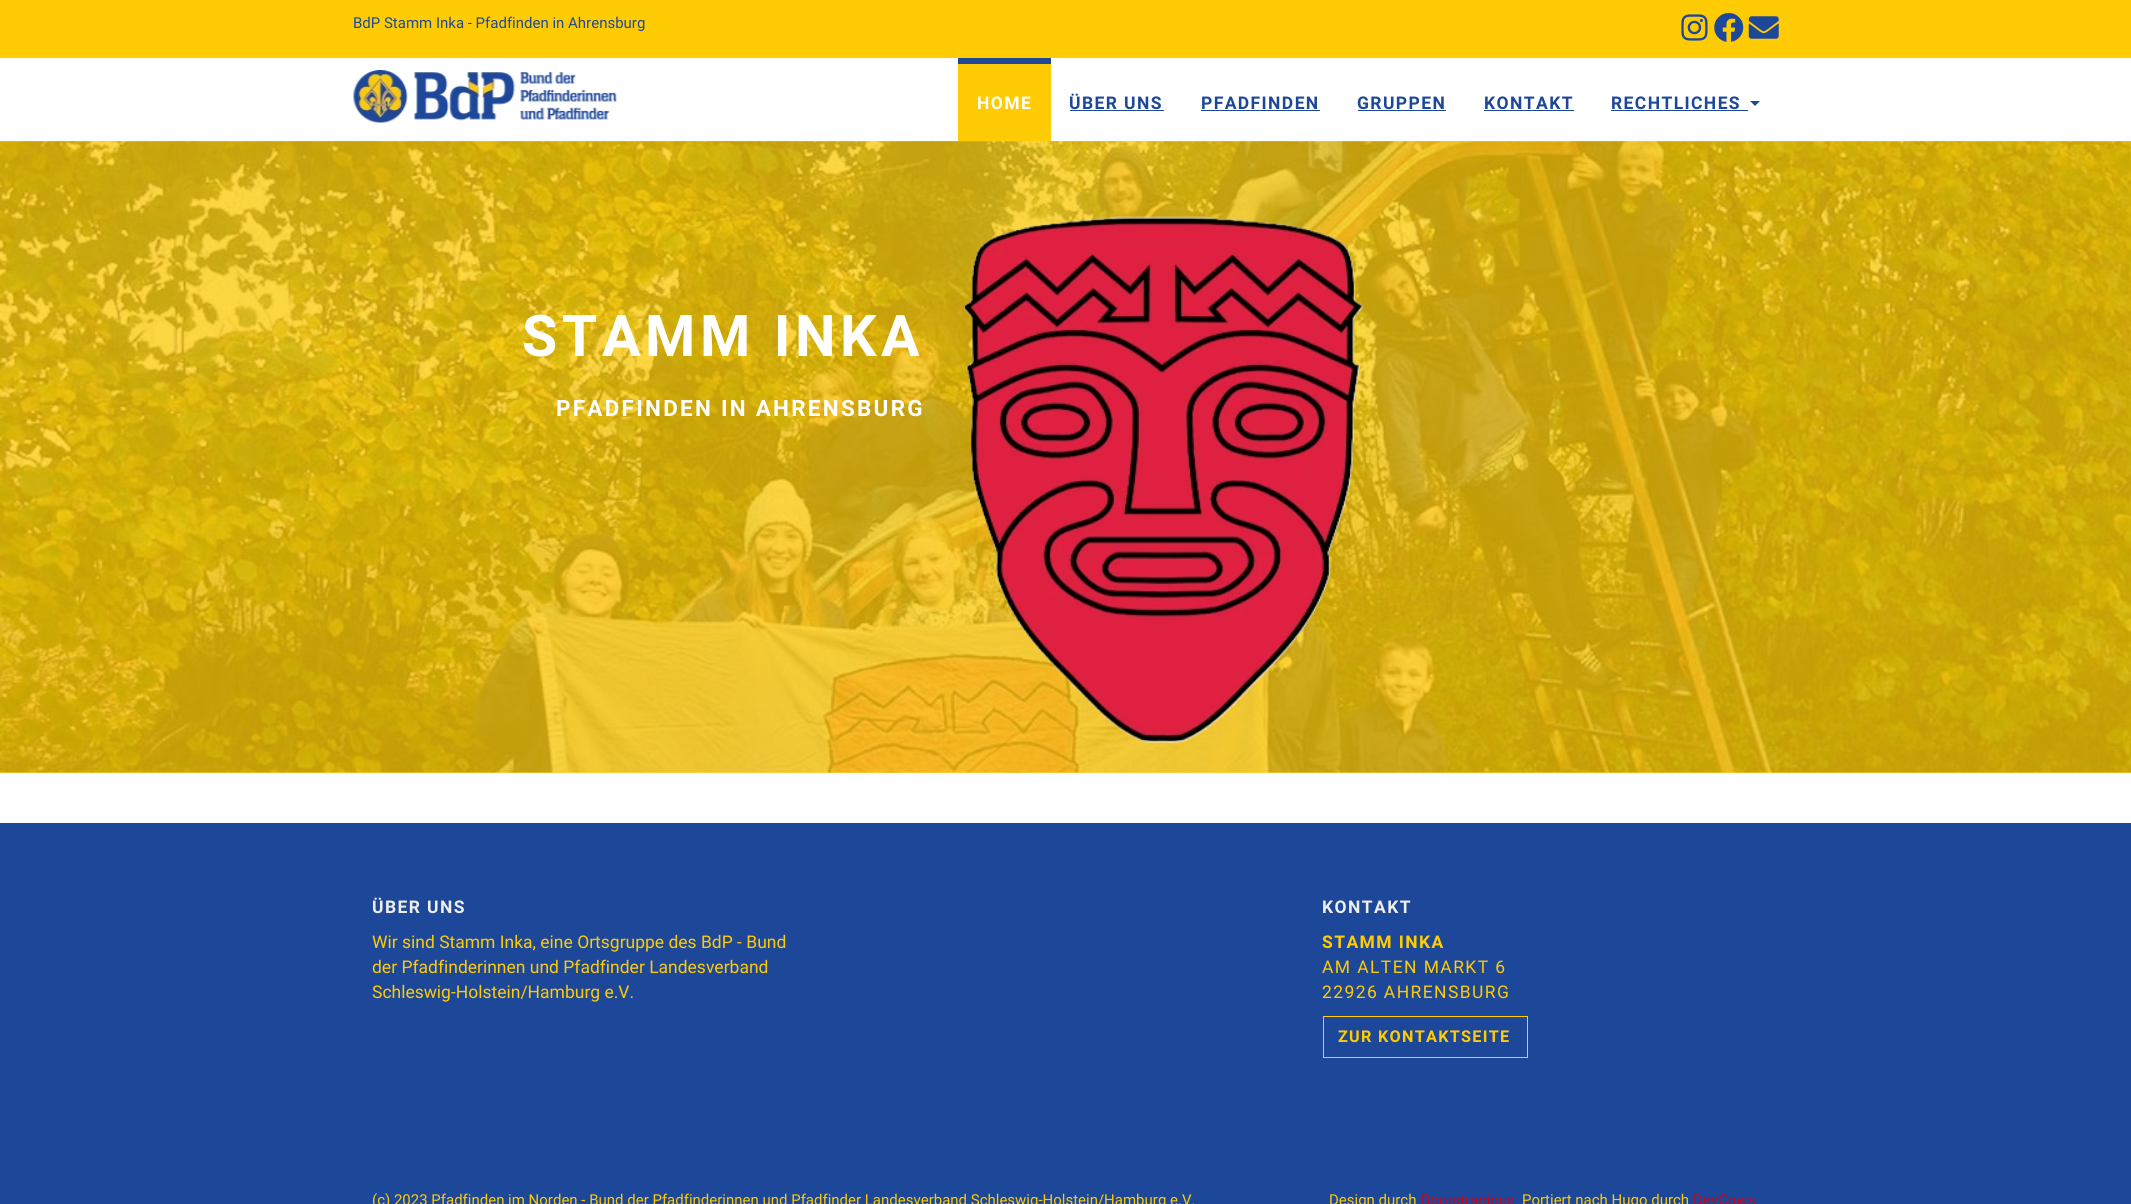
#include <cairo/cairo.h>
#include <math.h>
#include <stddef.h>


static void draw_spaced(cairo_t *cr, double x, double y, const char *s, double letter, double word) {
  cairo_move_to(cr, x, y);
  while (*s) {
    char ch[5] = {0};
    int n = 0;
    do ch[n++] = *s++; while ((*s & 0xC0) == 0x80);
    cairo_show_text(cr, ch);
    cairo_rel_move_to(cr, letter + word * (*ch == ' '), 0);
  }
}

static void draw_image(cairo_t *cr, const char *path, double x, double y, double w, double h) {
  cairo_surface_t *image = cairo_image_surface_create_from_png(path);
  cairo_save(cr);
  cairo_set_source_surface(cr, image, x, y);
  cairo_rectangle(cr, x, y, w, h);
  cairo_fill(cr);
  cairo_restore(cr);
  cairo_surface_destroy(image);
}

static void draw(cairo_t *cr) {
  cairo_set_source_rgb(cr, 1, 1, 1);
  cairo_paint(cr);
  cairo_set_source_rgb(cr, 1, 216 / 255.0, 67 / 255.0);
  cairo_rectangle(cr, 0, 141, 2131, 632);
  cairo_fill(cr);
  cairo_set_source_rgb(cr, 1, 203 / 255.0, 4 / 255.0);
  cairo_rectangle(cr, 0, 0, 2131, 58);
  cairo_fill(cr);
  draw_image(cr, "images/1.png", 1681, 14, 27, 27);
  draw_image(cr, "images/2.png", 1714, 13, 30, 29);
  draw_image(cr, "images/3.png", 1748, 16, 31, 23);
  draw_image(cr, "images/4.png", 353, 70, 264, 53);
  cairo_rectangle(cr, 958, 64, 93, 77);
  cairo_fill(cr);
  cairo_set_source_rgb(cr, 29 / 255.0, 72 / 255.0, 153 / 255.0);
  cairo_rectangle(cr, 958, 58, 93, 6);
  cairo_fill(cr);
  cairo_rectangle(cr, 1070, 110, 94, 1);
  cairo_fill(cr);
  cairo_rectangle(cr, 1201, 110, 119, 1);
  cairo_fill(cr);
  cairo_rectangle(cr, 1358, 110, 88, 1);
  cairo_fill(cr);
  cairo_rectangle(cr, 1484, 110, 90, 1);
  cairo_fill(cr);
  cairo_rectangle(cr, 1611, 110, 137, 1);
  cairo_fill(cr);
  cairo_new_path(cr);
  cairo_move_to(cr, 1750, 101);
  cairo_line_to(cr, 1760, 101);
  cairo_line_to(cr, 1755, 106);
  cairo_close_path(cr);
  cairo_fill(cr);
  draw_image(cr, "images/5.png", 0, 141, 2131, 632);
  draw_image(cr, "images/6.png", 963, 216, 401, 527);
  cairo_rectangle(cr, 0, 823, 2131, 381);
  cairo_fill(cr);
  cairo_rectangle(cr, 1323.5, 1016.5, 204, 41);
  cairo_set_source_rgb(cr, 1, 203 / 255.0, 4 / 255.0);
  cairo_set_line_width(cr, 1);
  cairo_stroke(cr);
  cairo_select_font_face(cr, "Roboto", CAIRO_FONT_SLANT_NORMAL, CAIRO_FONT_WEIGHT_NORMAL);
  cairo_set_font_size(cr, 15);
  cairo_set_source_rgb(cr, 29 / 255.0, 72 / 255.0, 153 / 255.0);
  cairo_move_to(cr, 353, 28);
  cairo_show_text(cr, "BdP Stamm Inka - Pfadfinden in Ahrensburg");
  cairo_select_font_face(cr, "Roboto", CAIRO_FONT_SLANT_NORMAL, CAIRO_FONT_WEIGHT_BOLD);
  cairo_set_font_size(cr, 17.5);
  cairo_set_source_rgb(cr, 1, 1, 1);
  draw_spaced(cr, 977, 109, "HOME", 1.4, 0);
  cairo_set_source_rgb(cr, 29 / 255.0, 72 / 255.0, 153 / 255.0);
  draw_spaced(cr, 1069, 109, "ÜBER UNS", 1.4, 0);
  draw_spaced(cr, 1201, 109, "PFADFINDEN", 1.4, 0);
  draw_spaced(cr, 1357, 109, "GRUPPEN", 1.4, 0);
  draw_spaced(cr, 1484, 109, "KONTAKT", 1.4, 0);
  draw_spaced(cr, 1611, 109, "RECHTLICHES", 1.4, 0);
  cairo_set_font_size(cr, 57.5);
  cairo_set_source_rgb(cr, 1, 1, 1);
  draw_spaced(cr, 522, 356, "STAMM INKA", 4.5, 0);
  cairo_set_font_size(cr, 22.5);
  draw_spaced(cr, 556, 416, "PFADFINDEN IN AHRENSBURG", 2.25, 0);
  cairo_set_font_size(cr, 17.5);
  cairo_set_source_rgb(cr, 238 / 255.0, 238 / 255.0, 238 / 255.0);
  draw_spaced(cr, 372, 913, "ÜBER UNS", 1.4, 0);
  cairo_select_font_face(cr, "Roboto", CAIRO_FONT_SLANT_NORMAL, CAIRO_FONT_WEIGHT_NORMAL);
  cairo_set_source_rgb(cr, 1, 203 / 255.0, 4 / 255.0);
  cairo_move_to(cr, 372, 948);
  cairo_show_text(cr, "Wir sind Stamm Inka, eine Ortsgruppe des BdP - Bund");
  cairo_move_to(cr, 372, 973);
  cairo_show_text(cr, "der Pfadfinderinnen und Pfadfinder Landesverband");
  cairo_move_to(cr, 372, 998);
  cairo_show_text(cr, "Schleswig-Holstein/Hamburg e.V.");
  cairo_select_font_face(cr, "Roboto", CAIRO_FONT_SLANT_NORMAL, CAIRO_FONT_WEIGHT_BOLD);
  cairo_set_source_rgb(cr, 238 / 255.0, 238 / 255.0, 238 / 255.0);
  draw_spaced(cr, 1322, 913, "KONTAKT", 1.4, 0);
  cairo_set_source_rgb(cr, 1, 203 / 255.0, 4 / 255.0);
  draw_spaced(cr, 1322, 948, "STAMM INKA", 1.4, 0);
  cairo_select_font_face(cr, "Roboto", CAIRO_FONT_SLANT_NORMAL, CAIRO_FONT_WEIGHT_NORMAL);
  draw_spaced(cr, 1322, 973, "AM ALTEN MARKT 6", 1.4, 0);
  draw_spaced(cr, 1322, 998, "22926 AHRENSBURG", 1.4, 0);
  cairo_select_font_face(cr, "Roboto", CAIRO_FONT_SLANT_NORMAL, CAIRO_FONT_WEIGHT_BOLD);
  cairo_set_font_size(cr, 16.25);
  draw_spaced(cr, 1338, 1042, "ZUR KONTAKTSEITE", 1.25, 0);
  cairo_select_font_face(cr, "Roboto", CAIRO_FONT_SLANT_NORMAL, CAIRO_FONT_WEIGHT_NORMAL);
  cairo_set_font_size(cr, 15);
  cairo_move_to(cr, 372, 1205);
  cairo_show_text(cr, "(c) 2023 Pfadfinden im Norden - Bund der Pfadfinderinnen und Pfadfinder Landesverband Schleswig-Holstein/Hamburg e.V.");
  cairo_move_to(cr, 1329, 1205);
  cairo_show_text(cr, "Design durch");
  cairo_set_source_rgb(cr, 211 / 255.0, 0, 20 / 255.0);
  cairo_move_to(cr, 1421, 1205);
  cairo_show_text(cr, "Bootstrapious");
  cairo_set_source_rgb(cr, 1, 203 / 255.0, 4 / 255.0);
  cairo_move_to(cr, 1522, 1205);
  cairo_show_text(cr, "Portiert nach Hugo durch");
  cairo_set_source_rgb(cr, 211 / 255.0, 0, 20 / 255.0);
  cairo_move_to(cr, 1693, 1205);
  cairo_show_text(cr, "DevCows");
}

int main(void) {
  cairo_surface_t *surface = cairo_image_surface_create(CAIRO_FORMAT_RGB24, 2131, 1204);
  cairo_t *cr = cairo_create(surface);
  cairo_font_options_t *options = cairo_font_options_create();
  cairo_font_options_set_hint_metrics(options, CAIRO_HINT_METRICS_OFF);
  cairo_font_options_set_hint_style(options, CAIRO_HINT_STYLE_NONE);
  cairo_set_font_options(cr, options);
  cairo_set_miter_limit(cr, 4);
  draw(cr);
  cairo_surface_write_to_png(surface, "out.png");
  cairo_font_options_destroy(options);
  cairo_destroy(cr);
  cairo_surface_destroy(surface);
  return 0;
}
